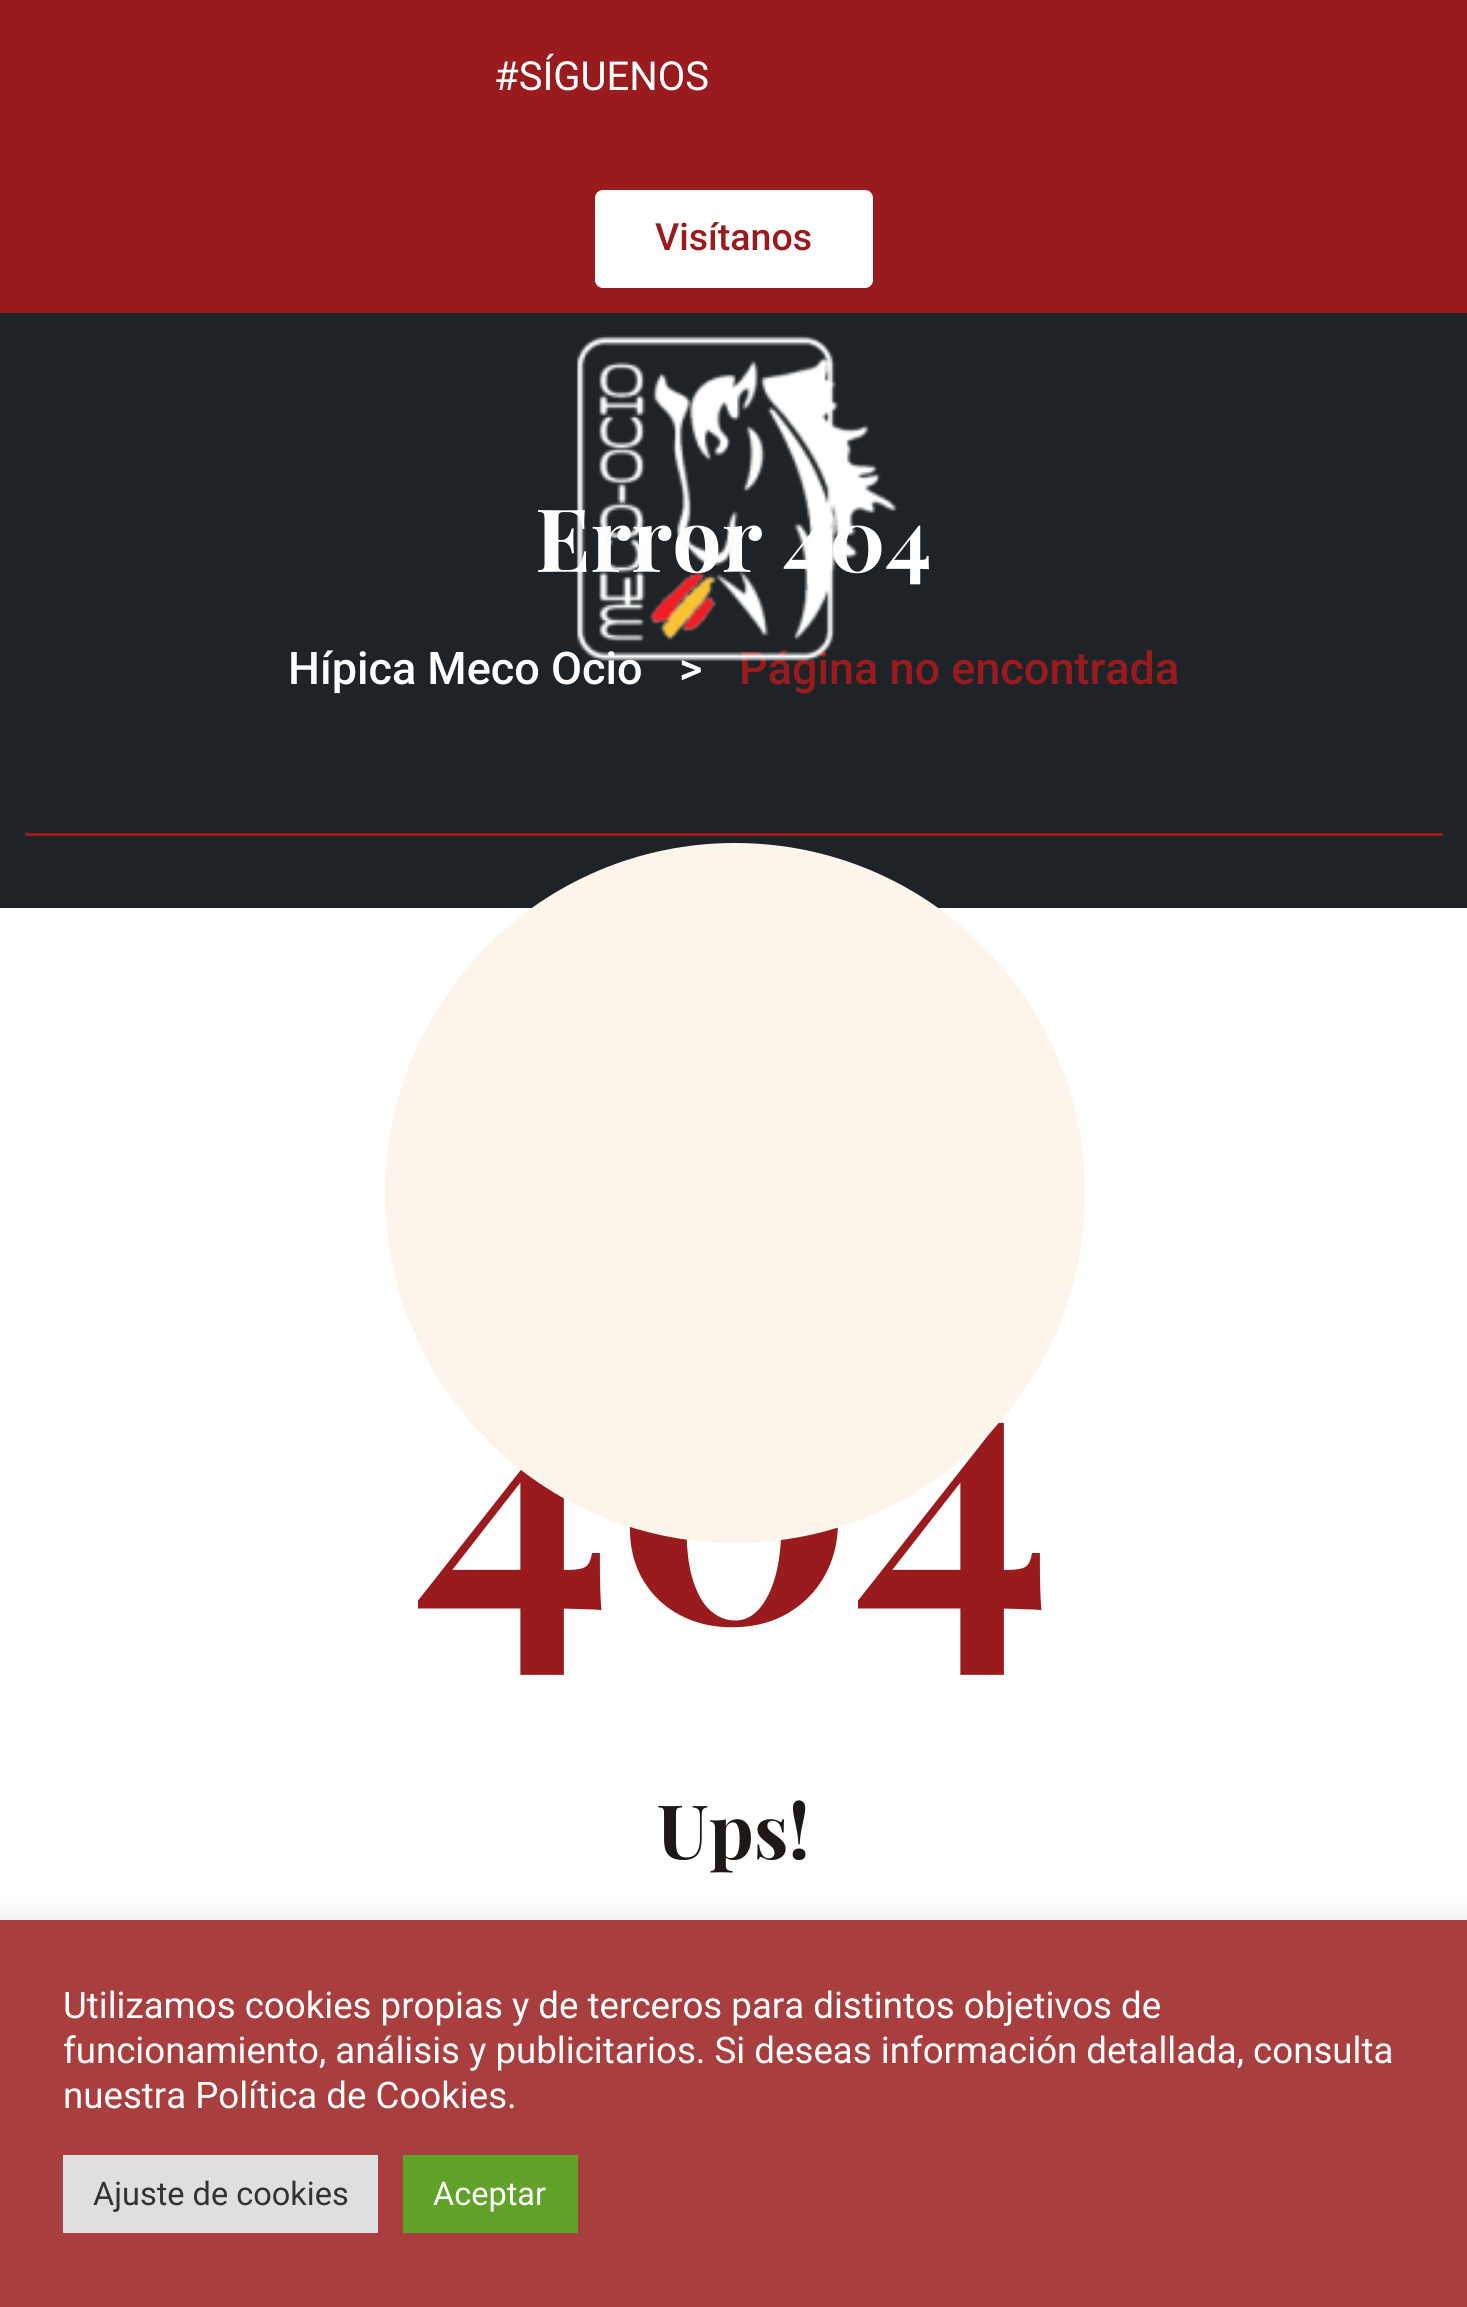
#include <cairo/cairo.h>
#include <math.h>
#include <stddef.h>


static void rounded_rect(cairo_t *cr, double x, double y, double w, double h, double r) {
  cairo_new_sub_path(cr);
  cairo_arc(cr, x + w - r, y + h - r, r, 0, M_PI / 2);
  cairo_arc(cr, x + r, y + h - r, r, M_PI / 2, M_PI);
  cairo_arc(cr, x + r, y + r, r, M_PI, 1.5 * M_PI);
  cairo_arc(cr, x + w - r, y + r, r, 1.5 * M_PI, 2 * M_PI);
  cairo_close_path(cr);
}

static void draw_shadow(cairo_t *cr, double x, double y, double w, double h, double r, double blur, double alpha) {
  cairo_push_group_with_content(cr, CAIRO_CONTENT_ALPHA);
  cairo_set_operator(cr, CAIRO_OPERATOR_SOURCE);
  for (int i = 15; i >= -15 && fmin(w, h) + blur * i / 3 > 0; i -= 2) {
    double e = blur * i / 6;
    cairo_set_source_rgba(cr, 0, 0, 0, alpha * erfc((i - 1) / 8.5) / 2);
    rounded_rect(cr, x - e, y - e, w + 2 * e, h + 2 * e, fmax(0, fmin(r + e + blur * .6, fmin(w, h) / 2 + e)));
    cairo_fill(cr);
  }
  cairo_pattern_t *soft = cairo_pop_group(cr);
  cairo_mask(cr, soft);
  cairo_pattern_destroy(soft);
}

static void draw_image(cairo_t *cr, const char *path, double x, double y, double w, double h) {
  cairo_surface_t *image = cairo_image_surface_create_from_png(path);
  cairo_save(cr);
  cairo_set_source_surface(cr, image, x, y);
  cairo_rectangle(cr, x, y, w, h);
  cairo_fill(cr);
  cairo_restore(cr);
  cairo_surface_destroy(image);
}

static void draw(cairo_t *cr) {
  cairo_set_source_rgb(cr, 1, 1, 1);
  cairo_paint(cr);
  cairo_set_source_rgb(cr, 154 / 255.0, 27 / 255.0, 30 / 255.0);
  cairo_rectangle(cr, 0, 0, 1467, 313);
  cairo_fill(cr);
  cairo_set_source_rgb(cr, 1, 1, 1);
  rounded_rect(cr, 595, 190, 278, 98, 8);
  cairo_fill(cr);
  cairo_set_source_rgb(cr, 29 / 255.0, 35 / 255.0, 39 / 255.0);
  cairo_rectangle(cr, 0, 313, 1467, 595);
  cairo_fill(cr);
  cairo_set_source_rgb(cr, 154 / 255.0, 27 / 255.0, 30 / 255.0);
  cairo_rectangle(cr, 25, 833, 1418, 3);
  cairo_fill(cr);
  cairo_set_source_rgb(cr, 172 / 255.0, 171 / 255.0, 171 / 255.0);
  draw_shadow(cr, 0, 1918, 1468, 387, 0, 12.5, 0.3);
  cairo_set_source_rgb(cr, 168 / 255.0, 62 / 255.0, 62 / 255.0);
  cairo_rectangle(cr, 0, 1920, 1467, 387);
  cairo_fill(cr);
  cairo_set_source_rgb(cr, 222 / 255.0, 223 / 255.0, 224 / 255.0);
  cairo_rectangle(cr, 63, 2155, 315, 78);
  cairo_fill(cr);
  cairo_set_source_rgb(cr, 97 / 255.0, 162 / 255.0, 41 / 255.0);
  cairo_rectangle(cr, 403, 2155, 175, 78);
  cairo_fill(cr);
  cairo_select_font_face(cr, "Roboto", CAIRO_FONT_SLANT_NORMAL, CAIRO_FONT_WEIGHT_NORMAL);
  cairo_set_font_size(cr, 40);
  cairo_set_source_rgb(cr, 1, 1, 1);
  cairo_move_to(cr, 494, 90);
  cairo_show_text(cr, "#SÍGUENOS");
  cairo_select_font_face(cr, "Roboto Medium", CAIRO_FONT_SLANT_NORMAL, CAIRO_FONT_WEIGHT_NORMAL);
  cairo_set_font_size(cr, 37.5);
  cairo_set_source_rgb(cr, 154 / 255.0, 27 / 255.0, 30 / 255.0);
  cairo_move_to(cr, 655, 250);
  cairo_show_text(cr, "Visítanos");
  cairo_select_font_face(cr, "Playfair Display", CAIRO_FONT_SLANT_NORMAL, CAIRO_FONT_WEIGHT_BOLD);
  cairo_set_font_size(cr, 87.5);
  cairo_set_source_rgb(cr, 1, 1, 1);
  cairo_move_to(cr, 535, 572);
  cairo_show_text(cr, "Error 404");
  cairo_select_font_face(cr, "Roboto Medium", CAIRO_FONT_SLANT_NORMAL, CAIRO_FONT_WEIGHT_NORMAL);
  cairo_set_font_size(cr, 45);
  cairo_move_to(cr, 288, 684);
  cairo_show_text(cr, "Hípica Meco Ocio");
  cairo_move_to(cr, 679, 684);
  cairo_show_text(cr, ">");
  cairo_set_source_rgb(cr, 154 / 255.0, 27 / 255.0, 30 / 255.0);
  cairo_move_to(cr, 739, 684);
  cairo_show_text(cr, "Página no encontrada");
  draw_image(cr, "images/1.png", 576, 335, 322, 327);
  cairo_select_font_face(cr, "Playfair Display", CAIRO_FONT_SLANT_NORMAL, CAIRO_FONT_WEIGHT_BOLD);
  cairo_set_font_size(cr, 375);
  cairo_move_to(cr, 415, 1622);
  cairo_show_text(cr, "404");
  cairo_set_source_rgb(cr, 253 / 255.0, 245 / 255.0, 235 / 255.0);
  cairo_new_path(cr);
  cairo_arc(cr, 735, 1193, 350, 0, 2 * M_PI);
  cairo_fill(cr);
  cairo_set_font_size(cr, 75);
  cairo_set_source_rgb(cr, 30 / 255.0, 25 / 255.0, 22 / 255.0);
  cairo_move_to(cr, 657, 1859);
  cairo_show_text(cr, "Ups!");
  cairo_select_font_face(cr, "Roboto", CAIRO_FONT_SLANT_NORMAL, CAIRO_FONT_WEIGHT_NORMAL);
  cairo_set_font_size(cr, 36.65);
  cairo_set_source_rgb(cr, 1, 1, 1);
  cairo_move_to(cr, 63, 2018);
  cairo_show_text(cr, "Utilizamos cookies propias y de terceros para distintos objetivos de");
  cairo_move_to(cr, 63, 2063);
  cairo_show_text(cr, "funcionamiento, análisis y publicitarios. Si deseas información detallada, consulta");
  cairo_move_to(cr, 63, 2108);
  cairo_show_text(cr, "nuestra Política de Cookies.");
  cairo_set_font_size(cr, 32.5);
  cairo_set_source_rgb(cr, 51 / 255.0, 51 / 255.0, 51 / 255.0);
  cairo_move_to(cr, 93, 2205);
  cairo_show_text(cr, "Ajuste de cookies");
  cairo_set_source_rgb(cr, 1, 1, 1);
  cairo_move_to(cr, 433, 2205);
  cairo_show_text(cr, "Aceptar");
}

int main(void) {
  cairo_surface_t *surface = cairo_image_surface_create(CAIRO_FORMAT_RGB24, 1467, 2307);
  cairo_t *cr = cairo_create(surface);
  cairo_font_options_t *options = cairo_font_options_create();
  cairo_font_options_set_hint_metrics(options, CAIRO_HINT_METRICS_OFF);
  cairo_font_options_set_hint_style(options, CAIRO_HINT_STYLE_NONE);
  cairo_set_font_options(cr, options);
  cairo_set_miter_limit(cr, 4);
  draw(cr);
  cairo_surface_write_to_png(surface, "out.png");
  cairo_font_options_destroy(options);
  cairo_destroy(cr);
  cairo_surface_destroy(surface);
  return 0;
}
